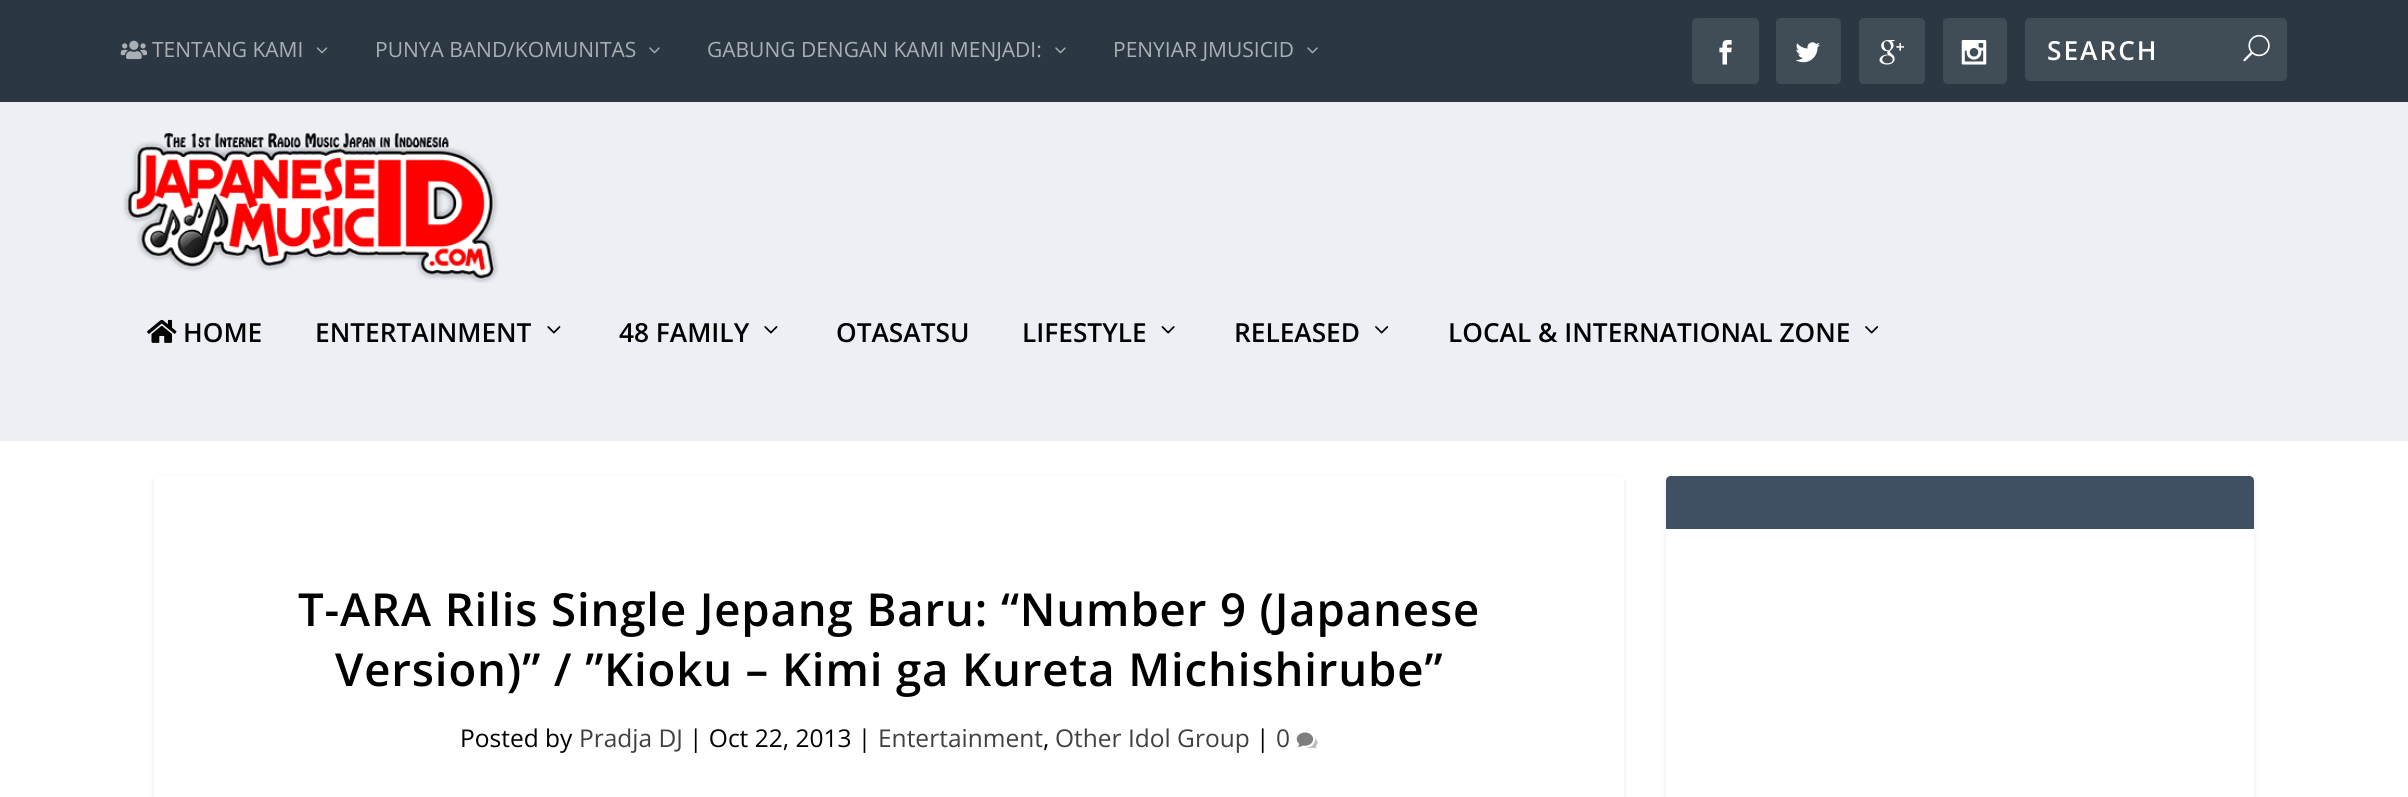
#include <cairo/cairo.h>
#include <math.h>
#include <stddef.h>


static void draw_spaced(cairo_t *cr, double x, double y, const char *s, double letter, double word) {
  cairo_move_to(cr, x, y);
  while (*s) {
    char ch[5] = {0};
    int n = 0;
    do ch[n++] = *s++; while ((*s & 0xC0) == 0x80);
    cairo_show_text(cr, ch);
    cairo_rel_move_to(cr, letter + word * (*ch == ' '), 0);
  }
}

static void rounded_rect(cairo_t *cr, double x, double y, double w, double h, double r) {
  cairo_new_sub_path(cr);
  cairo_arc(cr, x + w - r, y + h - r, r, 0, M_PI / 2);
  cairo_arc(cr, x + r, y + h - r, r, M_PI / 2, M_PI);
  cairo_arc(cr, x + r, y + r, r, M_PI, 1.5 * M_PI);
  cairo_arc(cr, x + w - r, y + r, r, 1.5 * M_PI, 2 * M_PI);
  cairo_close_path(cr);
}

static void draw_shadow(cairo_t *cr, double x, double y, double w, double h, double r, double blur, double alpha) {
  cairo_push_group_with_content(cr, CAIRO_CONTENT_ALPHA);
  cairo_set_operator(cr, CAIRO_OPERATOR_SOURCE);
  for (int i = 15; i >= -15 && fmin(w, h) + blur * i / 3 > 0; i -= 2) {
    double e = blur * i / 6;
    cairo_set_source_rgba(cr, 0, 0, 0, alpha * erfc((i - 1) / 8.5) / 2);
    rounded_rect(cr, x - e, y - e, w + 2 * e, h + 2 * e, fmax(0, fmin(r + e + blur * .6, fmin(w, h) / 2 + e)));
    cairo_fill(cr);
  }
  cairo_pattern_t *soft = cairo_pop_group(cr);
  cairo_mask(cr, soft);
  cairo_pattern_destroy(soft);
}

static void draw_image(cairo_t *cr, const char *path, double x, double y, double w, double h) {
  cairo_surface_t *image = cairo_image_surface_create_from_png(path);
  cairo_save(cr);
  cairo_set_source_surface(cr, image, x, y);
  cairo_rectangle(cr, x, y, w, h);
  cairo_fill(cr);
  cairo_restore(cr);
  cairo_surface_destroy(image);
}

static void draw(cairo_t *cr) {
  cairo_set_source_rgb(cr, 1, 1, 1);
  cairo_paint(cr);
  cairo_set_source_rgb(cr, 43 / 255.0, 56 / 255.0, 67 / 255.0);
  cairo_rectangle(cr, 0, 0, 2408, 102);
  cairo_fill(cr);
  draw_image(cr, "images/1.png", 120, 40, 27, 20);
  draw_image(cr, "images/2.png", 316, 47, 12, 7);
  draw_image(cr, "images/3.png", 649, 47, 11, 7);
  draw_image(cr, "images/3.png", 1055, 47, 11, 7);
  draw_image(cr, "images/3.png", 1307, 47, 11, 7);
  cairo_set_source_rgb(cr, 64 / 255.0, 76 / 255.0, 86 / 255.0);
  rounded_rect(cr, 1692, 18, 67, 66, 5);
  cairo_fill(cr);
  draw_image(cr, "images/4.png", 1719, 40, 13, 25);
  rounded_rect(cr, 1776, 18, 65, 66, 5);
  cairo_fill(cr);
  draw_image(cr, "images/5.png", 1795, 42, 25, 21);
  rounded_rect(cr, 1859, 18, 66, 66, 5);
  cairo_fill(cr);
  draw_image(cr, "images/6.png", 1879, 40, 25, 25);
  rounded_rect(cr, 1943, 18, 64, 66, 5);
  cairo_fill(cr);
  draw_image(cr, "images/7.png", 1961, 40, 26, 25);
  rounded_rect(cr, 2025, 18, 262, 63, 5);
  cairo_fill(cr);
  draw_image(cr, "images/8.png", 2243, 34, 27, 28);
  cairo_set_source_rgb(cr, 236 / 255.0, 240 / 255.0, 245 / 255.0);
  cairo_rectangle(cr, 0, 102, 2408, 339);
  cairo_fill(cr);
  draw_image(cr, "images/9.png", 123, 133, 376, 150);
  draw_image(cr, "images/10.png", 147, 319, 30, 24);
  draw_image(cr, "images/11.png", 547, 326, 14, 8);
  draw_image(cr, "images/11.png", 764, 326, 14, 8);
  draw_image(cr, "images/12.png", 1161, 326, 14, 8);
  draw_image(cr, "images/13.png", 1375, 326, 14, 8);
  draw_image(cr, "images/13.png", 1865, 326, 14, 8);
  cairo_set_source_rgb(cr, 0, 0, 0);
  draw_shadow(cr, 154, 478, 1470, 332, 5, 2.5, 0.1);
  cairo_set_source_rgb(cr, 1, 1, 1);
  rounded_rect(cr, 154, 476, 1470, 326, 5);
  cairo_fill(cr);
  draw_image(cr, "images/14.png", 1296, 732, 22, 17);
  cairo_set_source_rgb(cr, 0, 0, 0);
  draw_shadow(cr, 1666, 478, 588, 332, 5, 2.5, 0.1);
  cairo_set_source_rgb(cr, 1, 1, 1);
  rounded_rect(cr, 1666, 476, 588, 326, 5);
  cairo_fill(cr);
  cairo_set_source_rgb(cr, 62 / 255.0, 80 / 255.0, 98 / 255.0);
  cairo_new_path(cr);
  cairo_move_to(cr, 1671, 476);
  cairo_line_to(cr, 2249, 476);
  cairo_curve_to(cr, 2252, 476, 2254, 478, 2254, 481);
  cairo_line_to(cr, 2254, 529);
  cairo_line_to(cr, 1666, 529);
  cairo_line_to(cr, 1666, 481);
  cairo_curve_to(cr, 1666, 478, 1668, 476, 1671, 476);
  cairo_close_path(cr);
  cairo_fill(cr);
  cairo_select_font_face(cr, "Open Sans", CAIRO_FONT_SLANT_NORMAL, CAIRO_FONT_WEIGHT_NORMAL);
  cairo_set_font_size(cr, 21);
  cairo_set_source_rgb(cr, 170 / 255.0, 175 / 255.0, 180 / 255.0);
  cairo_move_to(cr, 152, 57);
  cairo_show_text(cr, "TENTANG KAMI");
  cairo_move_to(cr, 375, 57);
  cairo_show_text(cr, "PUNYA BAND/KOMUNITAS");
  cairo_move_to(cr, 707, 57);
  cairo_show_text(cr, "GABUNG DENGAN KAMI MENJADI:");
  cairo_move_to(cr, 1113, 57);
  cairo_show_text(cr, "PENYIAR JMUSICID");
  cairo_select_font_face(cr, "Open Sans SemiBold", CAIRO_FONT_SLANT_NORMAL, CAIRO_FONT_WEIGHT_NORMAL);
  cairo_set_font_size(cr, 26.25);
  cairo_set_source_rgb(cr, 1, 1, 1);
  draw_spaced(cr, 2047, 60, "SEARCH", 2, 0);
  cairo_set_source_rgb(cr, 0, 0, 0);
  cairo_move_to(cr, 183, 342);
  cairo_show_text(cr, "HOME");
  cairo_move_to(cr, 315, 342);
  cairo_show_text(cr, "ENTERTAINMENT");
  cairo_move_to(cr, 619, 342);
  cairo_show_text(cr, "48 FAMILY");
  cairo_move_to(cr, 836, 342);
  cairo_show_text(cr, "OTASATSU");
  cairo_move_to(cr, 1022, 342);
  cairo_show_text(cr, "LIFESTYLE");
  cairo_move_to(cr, 1234, 342);
  cairo_show_text(cr, "RELEASED");
  cairo_move_to(cr, 1448, 342);
  cairo_show_text(cr, "LOCAL & INTERNATIONAL ZONE");
  cairo_set_font_size(cr, 45.5);
  draw_spaced(cr, 298, 626, "T-ARA Rilis Single Jepang Baru: “Number 9 (Japanese", 0.88, 0);
  draw_spaced(cr, 335, 686, "Version)” / ”Kioku – Kimi ga Kureta Michishirube”", 0.88, 0);
  cairo_select_font_face(cr, "Open Sans", CAIRO_FONT_SLANT_NORMAL, CAIRO_FONT_WEIGHT_NORMAL);
  cairo_set_font_size(cr, 24.5);
  cairo_move_to(cr, 460, 747);
  cairo_show_text(cr, "Posted by");
  cairo_set_source_rgb(cr, 64 / 255.0, 64 / 255.0, 64 / 255.0);
  cairo_move_to(cr, 579, 747);
  cairo_show_text(cr, "Pradja DJ");
  cairo_set_source_rgb(cr, 0, 0, 0);
  cairo_move_to(cr, 689, 747);
  cairo_show_text(cr, "| Oct 22, 2013 |");
  cairo_set_source_rgb(cr, 64 / 255.0, 64 / 255.0, 64 / 255.0);
  cairo_move_to(cr, 878, 747);
  cairo_show_text(cr, "Entertainment");
  cairo_set_source_rgb(cr, 0, 0, 0);
  cairo_move_to(cr, 1043, 747);
  cairo_show_text(cr, ",");
  cairo_set_source_rgb(cr, 64 / 255.0, 64 / 255.0, 64 / 255.0);
  cairo_move_to(cr, 1055, 747);
  cairo_show_text(cr, "Other Idol Group");
  cairo_set_source_rgb(cr, 0, 0, 0);
  cairo_move_to(cr, 1256, 747);
  cairo_show_text(cr, "|");
  cairo_set_source_rgb(cr, 64 / 255.0, 64 / 255.0, 64 / 255.0);
  cairo_move_to(cr, 1276, 747);
  cairo_show_text(cr, "0");
}

int main(void) {
  cairo_surface_t *surface = cairo_image_surface_create(CAIRO_FORMAT_RGB24, 2408, 797);
  cairo_t *cr = cairo_create(surface);
  cairo_font_options_t *options = cairo_font_options_create();
  cairo_font_options_set_hint_metrics(options, CAIRO_HINT_METRICS_OFF);
  cairo_font_options_set_hint_style(options, CAIRO_HINT_STYLE_NONE);
  cairo_set_font_options(cr, options);
  cairo_set_miter_limit(cr, 4);
  draw(cr);
  cairo_surface_write_to_png(surface, "out.png");
  cairo_font_options_destroy(options);
  cairo_destroy(cr);
  cairo_surface_destroy(surface);
  return 0;
}
